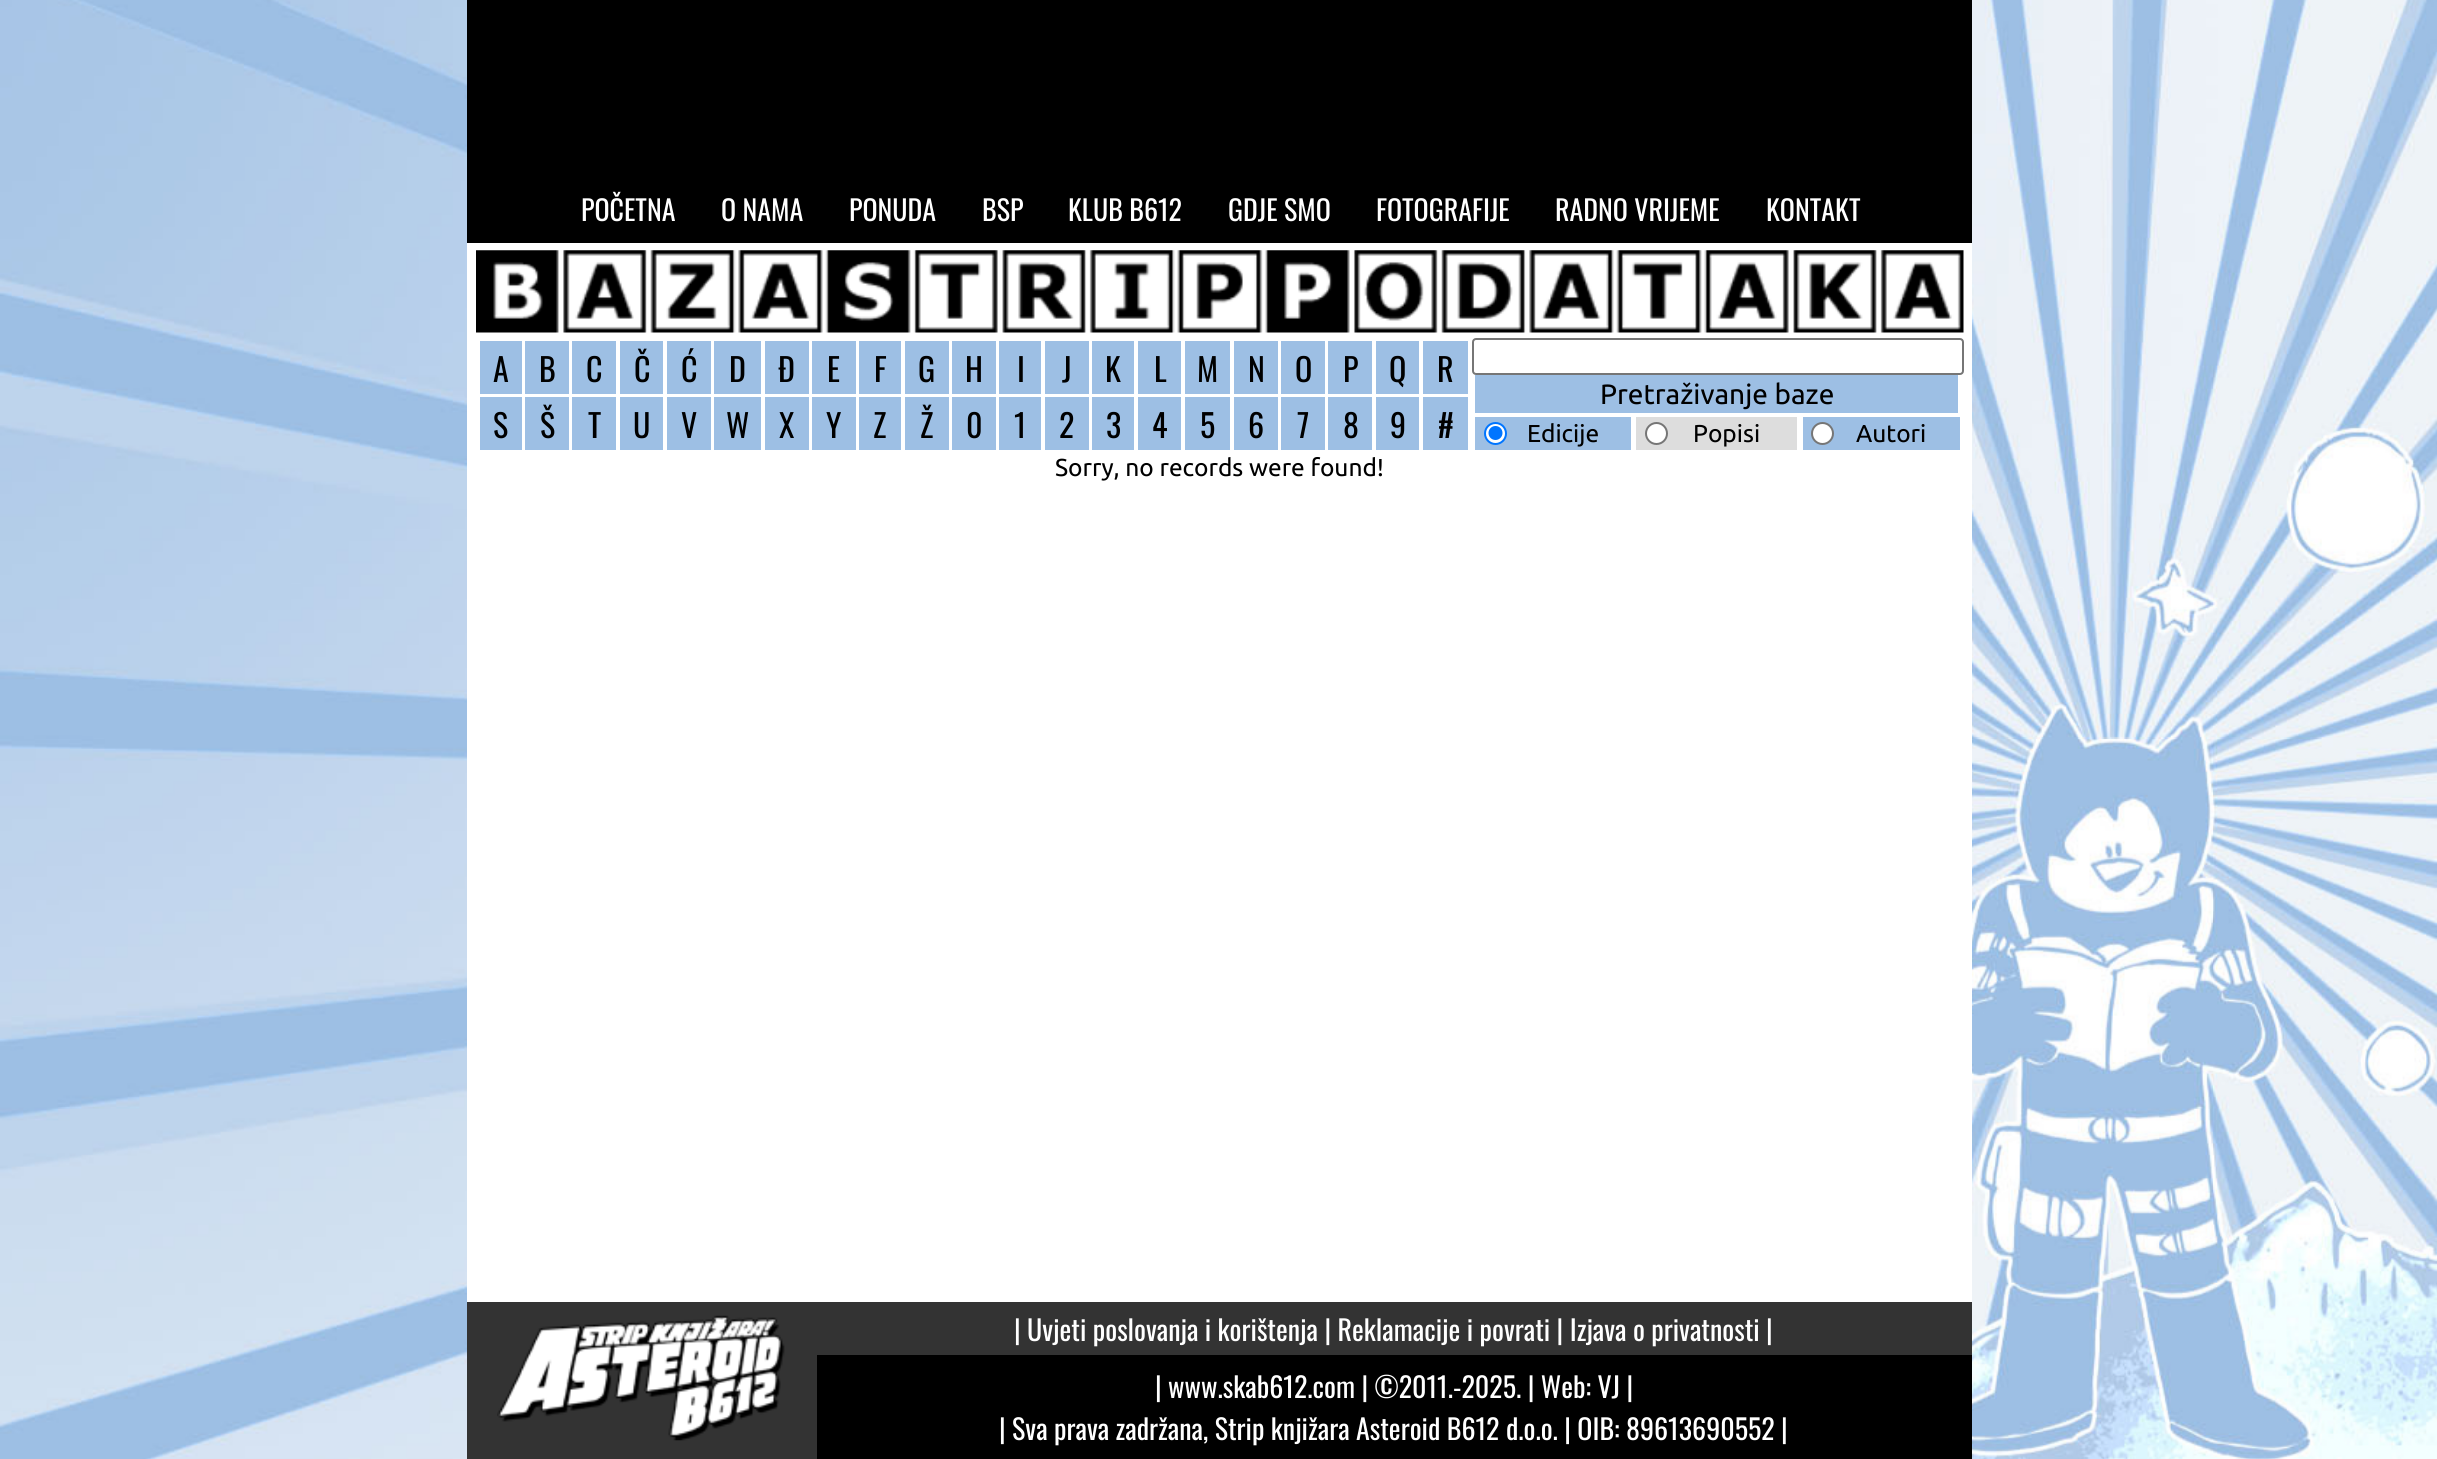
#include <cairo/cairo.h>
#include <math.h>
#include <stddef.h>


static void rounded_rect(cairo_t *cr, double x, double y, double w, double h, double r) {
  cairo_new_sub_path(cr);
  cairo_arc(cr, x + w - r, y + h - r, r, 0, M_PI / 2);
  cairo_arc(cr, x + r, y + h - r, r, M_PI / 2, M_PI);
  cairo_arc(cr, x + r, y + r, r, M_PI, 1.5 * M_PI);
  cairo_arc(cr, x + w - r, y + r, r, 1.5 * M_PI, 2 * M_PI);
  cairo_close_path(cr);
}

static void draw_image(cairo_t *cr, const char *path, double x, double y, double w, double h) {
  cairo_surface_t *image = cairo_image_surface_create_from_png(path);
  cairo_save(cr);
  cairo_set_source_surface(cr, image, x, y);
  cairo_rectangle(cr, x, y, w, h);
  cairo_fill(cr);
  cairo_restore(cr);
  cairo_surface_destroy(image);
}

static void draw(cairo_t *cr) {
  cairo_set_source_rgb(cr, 1, 1, 1);
  cairo_paint(cr);
  draw_image(cr, "images/1.png", 0, 1458, 2437, 1);
  draw_image(cr, "images/2.png", 0, 0, 2437, 1459);
  cairo_set_source_rgb(cr, 0, 0, 0);
  cairo_rectangle(cr, 467, 0, 1505, 243);
  cairo_fill(cr);
  cairo_set_source_rgb(cr, 1, 1, 1);
  cairo_rectangle(cr, 467, 243, 1505, 1059);
  cairo_fill(cr);
  draw_image(cr, "images/3.png", 476, 250, 1488, 83);
  cairo_set_source_rgb(cr, 157 / 255.0, 191 / 255.0, 228 / 255.0);
  cairo_rectangle(cr, 480, 341, 42, 53);
  cairo_fill(cr);
  cairo_rectangle(cr, 525, 341, 44, 53);
  cairo_fill(cr);
  cairo_rectangle(cr, 572, 341, 44, 53);
  cairo_fill(cr);
  cairo_rectangle(cr, 620, 341, 43, 53);
  cairo_fill(cr);
  cairo_rectangle(cr, 667, 341, 44, 53);
  cairo_fill(cr);
  cairo_rectangle(cr, 714, 341, 47, 53);
  cairo_fill(cr);
  cairo_rectangle(cr, 765, 341, 44, 53);
  cairo_fill(cr);
  cairo_rectangle(cr, 812, 341, 44, 53);
  cairo_fill(cr);
  cairo_rectangle(cr, 859, 341, 42, 53);
  cairo_fill(cr);
  cairo_rectangle(cr, 905, 341, 44, 53);
  cairo_fill(cr);
  cairo_rectangle(cr, 952, 341, 44, 53);
  cairo_fill(cr);
  cairo_rectangle(cr, 999, 341, 42, 53);
  cairo_fill(cr);
  cairo_rectangle(cr, 1045, 341, 44, 53);
  cairo_fill(cr);
  cairo_rectangle(cr, 1092, 341, 42, 53);
  cairo_fill(cr);
  cairo_rectangle(cr, 1138, 341, 43, 53);
  cairo_fill(cr);
  cairo_rectangle(cr, 1185, 341, 45, 53);
  cairo_fill(cr);
  cairo_rectangle(cr, 1234, 341, 44, 53);
  cairo_fill(cr);
  cairo_rectangle(cr, 1281, 341, 44, 53);
  cairo_fill(cr);
  cairo_rectangle(cr, 1328, 341, 44, 53);
  cairo_fill(cr);
  cairo_rectangle(cr, 1376, 341, 43, 53);
  cairo_fill(cr);
  cairo_rectangle(cr, 1423, 341, 45, 53);
  cairo_fill(cr);
  cairo_rectangle(cr, 480, 397, 42, 53);
  cairo_fill(cr);
  cairo_rectangle(cr, 525, 397, 44, 53);
  cairo_fill(cr);
  cairo_rectangle(cr, 572, 397, 44, 53);
  cairo_fill(cr);
  cairo_rectangle(cr, 620, 397, 43, 53);
  cairo_fill(cr);
  cairo_rectangle(cr, 667, 397, 44, 53);
  cairo_fill(cr);
  cairo_rectangle(cr, 714, 397, 47, 53);
  cairo_fill(cr);
  cairo_rectangle(cr, 765, 397, 44, 53);
  cairo_fill(cr);
  cairo_rectangle(cr, 812, 397, 44, 53);
  cairo_fill(cr);
  cairo_rectangle(cr, 859, 397, 42, 53);
  cairo_fill(cr);
  cairo_rectangle(cr, 905, 397, 44, 53);
  cairo_fill(cr);
  cairo_rectangle(cr, 952, 397, 44, 53);
  cairo_fill(cr);
  cairo_rectangle(cr, 999, 397, 42, 53);
  cairo_fill(cr);
  cairo_rectangle(cr, 1045, 397, 44, 53);
  cairo_fill(cr);
  cairo_rectangle(cr, 1092, 397, 42, 53);
  cairo_fill(cr);
  cairo_rectangle(cr, 1138, 397, 43, 53);
  cairo_fill(cr);
  cairo_rectangle(cr, 1185, 397, 45, 53);
  cairo_fill(cr);
  cairo_rectangle(cr, 1234, 397, 44, 53);
  cairo_fill(cr);
  cairo_rectangle(cr, 1281, 397, 44, 53);
  cairo_fill(cr);
  cairo_rectangle(cr, 1328, 397, 44, 53);
  cairo_fill(cr);
  cairo_rectangle(cr, 1376, 397, 43, 53);
  cairo_fill(cr);
  cairo_rectangle(cr, 1423, 397, 45, 53);
  cairo_fill(cr);
  rounded_rect(cr, 1473, 339, 490, 35, 3);
  cairo_set_source_rgb(cr, 118 / 255.0, 118 / 255.0, 118 / 255.0);
  cairo_stroke(cr);
  cairo_set_source_rgb(cr, 157 / 255.0, 191 / 255.0, 228 / 255.0);
  cairo_rectangle(cr, 1475, 375, 483, 38);
  cairo_fill(cr);
  cairo_rectangle(cr, 1475, 417, 156, 33);
  cairo_fill(cr);
  cairo_set_source_rgb(cr, 1, 1, 1);
  cairo_arc(cr, 1495.5, 433.5, 10.5, 0, 2 * M_PI);
  cairo_fill_preserve(cr);
  cairo_set_source_rgb(cr, 0, 117 / 255.0, 1);
  cairo_stroke(cr);
  cairo_arc(cr, 1495.5, 433, 7, 0, 2 * M_PI);
  cairo_fill(cr);
  cairo_set_source_rgb(cr, 221 / 255.0, 221 / 255.0, 221 / 255.0);
  cairo_rectangle(cr, 1636, 417, 161, 33);
  cairo_fill(cr);
  cairo_set_source_rgb(cr, 1, 1, 1);
  cairo_arc(cr, 1656.5, 433.5, 10.5, 0, 2 * M_PI);
  cairo_fill_preserve(cr);
  cairo_set_source_rgb(cr, 118 / 255.0, 118 / 255.0, 118 / 255.0);
  cairo_stroke(cr);
  cairo_set_source_rgb(cr, 157 / 255.0, 191 / 255.0, 228 / 255.0);
  cairo_rectangle(cr, 1803, 417, 157, 33);
  cairo_fill(cr);
  cairo_set_source_rgb(cr, 1, 1, 1);
  cairo_arc(cr, 1822.5, 433.5, 10.5, 0, 2 * M_PI);
  cairo_fill_preserve(cr);
  cairo_set_source_rgb(cr, 118 / 255.0, 118 / 255.0, 118 / 255.0);
  cairo_stroke(cr);
  cairo_set_source_rgb(cr, 51 / 255.0, 51 / 255.0, 51 / 255.0);
  cairo_rectangle(cr, 467, 1302, 350, 157);
  cairo_fill(cr);
  draw_image(cr, "images/4.png", 497, 1315, 288, 126);
  cairo_rectangle(cr, 817, 1302, 1155, 53);
  cairo_fill(cr);
  cairo_set_source_rgb(cr, 0, 0, 0);
  cairo_rectangle(cr, 817, 1355, 1155, 104);
  cairo_fill(cr);
  cairo_select_font_face(cr, "Oswald", CAIRO_FONT_SLANT_NORMAL, CAIRO_FONT_WEIGHT_NORMAL);
  cairo_set_font_size(cr, 28);
  cairo_set_source_rgb(cr, 1, 1, 1);
  cairo_move_to(cr, 581, 221);
  cairo_show_text(cr, "POČETNA");
  cairo_move_to(cr, 721, 221);
  cairo_show_text(cr, "O NAMA");
  cairo_move_to(cr, 849, 221);
  cairo_show_text(cr, "PONUDA");
  cairo_move_to(cr, 982, 221);
  cairo_show_text(cr, "BSP");
  cairo_move_to(cr, 1068, 221);
  cairo_show_text(cr, "KLUB B612");
  cairo_move_to(cr, 1228, 221);
  cairo_show_text(cr, "GDJE SMO");
  cairo_move_to(cr, 1376, 221);
  cairo_show_text(cr, "FOTOGRAFIJE");
  cairo_move_to(cr, 1555, 221);
  cairo_show_text(cr, "RADNO VRIJEME");
  cairo_move_to(cr, 1766, 221);
  cairo_show_text(cr, "KONTAKT");
  cairo_set_font_size(cr, 32);
  cairo_set_source_rgb(cr, 0, 0, 0);
  cairo_move_to(cr, 493, 382);
  cairo_show_text(cr, "A");
  cairo_move_to(cr, 539, 382);
  cairo_show_text(cr, "B");
  cairo_move_to(cr, 586, 382);
  cairo_show_text(cr, "C");
  cairo_move_to(cr, 634, 382);
  cairo_show_text(cr, "Č");
  cairo_move_to(cr, 681, 382);
  cairo_show_text(cr, "Ć");
  cairo_move_to(cr, 729, 382);
  cairo_show_text(cr, "D");
  cairo_move_to(cr, 778, 382);
  cairo_show_text(cr, "Đ");
  cairo_move_to(cr, 827, 382);
  cairo_show_text(cr, "E");
  cairo_move_to(cr, 874, 382);
  cairo_show_text(cr, "F");
  cairo_move_to(cr, 918, 382);
  cairo_show_text(cr, "G");
  cairo_move_to(cr, 965, 382);
  cairo_show_text(cr, "H");
  cairo_move_to(cr, 1017, 382);
  cairo_show_text(cr, "I");
  cairo_move_to(cr, 1062, 382);
  cairo_show_text(cr, "J");
  cairo_move_to(cr, 1105, 382);
  cairo_show_text(cr, "K");
  cairo_move_to(cr, 1154, 382);
  cairo_show_text(cr, "L");
  cairo_move_to(cr, 1197, 382);
  cairo_show_text(cr, "M");
  cairo_move_to(cr, 1248, 382);
  cairo_show_text(cr, "N");
  cairo_move_to(cr, 1295, 382);
  cairo_show_text(cr, "O");
  cairo_move_to(cr, 1343, 382);
  cairo_show_text(cr, "P");
  cairo_move_to(cr, 1389, 382);
  cairo_show_text(cr, "Q");
  cairo_move_to(cr, 1437, 382);
  cairo_show_text(cr, "R");
  cairo_move_to(cr, 493, 438);
  cairo_show_text(cr, "S");
  cairo_move_to(cr, 540, 438);
  cairo_show_text(cr, "Š");
  cairo_move_to(cr, 588, 438);
  cairo_show_text(cr, "T");
  cairo_move_to(cr, 633, 438);
  cairo_show_text(cr, "U");
  cairo_move_to(cr, 681, 438);
  cairo_show_text(cr, "V");
  cairo_move_to(cr, 726, 438);
  cairo_show_text(cr, "W");
  cairo_move_to(cr, 779, 438);
  cairo_show_text(cr, "X");
  cairo_move_to(cr, 826, 438);
  cairo_show_text(cr, "Y");
  cairo_move_to(cr, 873, 438);
  cairo_show_text(cr, "Z");
  cairo_move_to(cr, 920, 438);
  cairo_show_text(cr, "Ž");
  cairo_move_to(cr, 966, 438);
  cairo_show_text(cr, "0");
  cairo_move_to(cr, 1014, 438);
  cairo_show_text(cr, "1");
  cairo_move_to(cr, 1059, 438);
  cairo_show_text(cr, "2");
  cairo_move_to(cr, 1106, 438);
  cairo_show_text(cr, "3");
  cairo_move_to(cr, 1152, 438);
  cairo_show_text(cr, "4");
  cairo_move_to(cr, 1200, 438);
  cairo_show_text(cr, "5");
  cairo_move_to(cr, 1248, 438);
  cairo_show_text(cr, "6");
  cairo_move_to(cr, 1297, 438);
  cairo_show_text(cr, "7");
  cairo_move_to(cr, 1343, 438);
  cairo_show_text(cr, "8");
  cairo_move_to(cr, 1390, 438);
  cairo_show_text(cr, "9");
  cairo_move_to(cr, 1438, 438);
  cairo_show_text(cr, "#");
  cairo_select_font_face(cr, "Ubuntu", CAIRO_FONT_SLANT_NORMAL, CAIRO_FONT_WEIGHT_NORMAL);
  cairo_set_font_size(cr, 28);
  cairo_move_to(cr, 1600, 404);
  cairo_show_text(cr, "Pretraživanje baze");
  cairo_set_font_size(cr, 24.5);
  cairo_move_to(cr, 1527, 442);
  cairo_show_text(cr, "Edicije");
  cairo_move_to(cr, 1693, 442);
  cairo_show_text(cr, "Popisi");
  cairo_move_to(cr, 1856, 442);
  cairo_show_text(cr, "Autori");
  cairo_move_to(cr, 1055, 476);
  cairo_show_text(cr, "Sorry, no records were found!");
  cairo_select_font_face(cr, "Oswald", CAIRO_FONT_SLANT_NORMAL, CAIRO_FONT_WEIGHT_NORMAL);
  cairo_set_font_size(cr, 28);
  cairo_set_source_rgb(cr, 1, 1, 1);
  cairo_move_to(cr, 1014, 1341);
  cairo_show_text(cr, "| Uvjeti poslovanja i korištenja | Reklamacije i povrati | Izjava o privatnosti |");
  cairo_move_to(cr, 1155, 1398);
  cairo_show_text(cr, "| www.skab612.com | ©2011.-2025. | Web: VJ |");
  cairo_move_to(cr, 999, 1440);
  cairo_show_text(cr, "| Sva prava zadržana, Strip knjižara Asteroid B612 d.o.o. | OIB: 89613690552 |");
}

int main(void) {
  cairo_surface_t *surface = cairo_image_surface_create(CAIRO_FORMAT_RGB24, 2437, 1459);
  cairo_t *cr = cairo_create(surface);
  cairo_font_options_t *options = cairo_font_options_create();
  cairo_font_options_set_hint_metrics(options, CAIRO_HINT_METRICS_OFF);
  cairo_font_options_set_hint_style(options, CAIRO_HINT_STYLE_NONE);
  cairo_set_font_options(cr, options);
  cairo_set_miter_limit(cr, 4);
  draw(cr);
  cairo_surface_write_to_png(surface, "out.png");
  cairo_font_options_destroy(options);
  cairo_destroy(cr);
  cairo_surface_destroy(surface);
  return 0;
}
